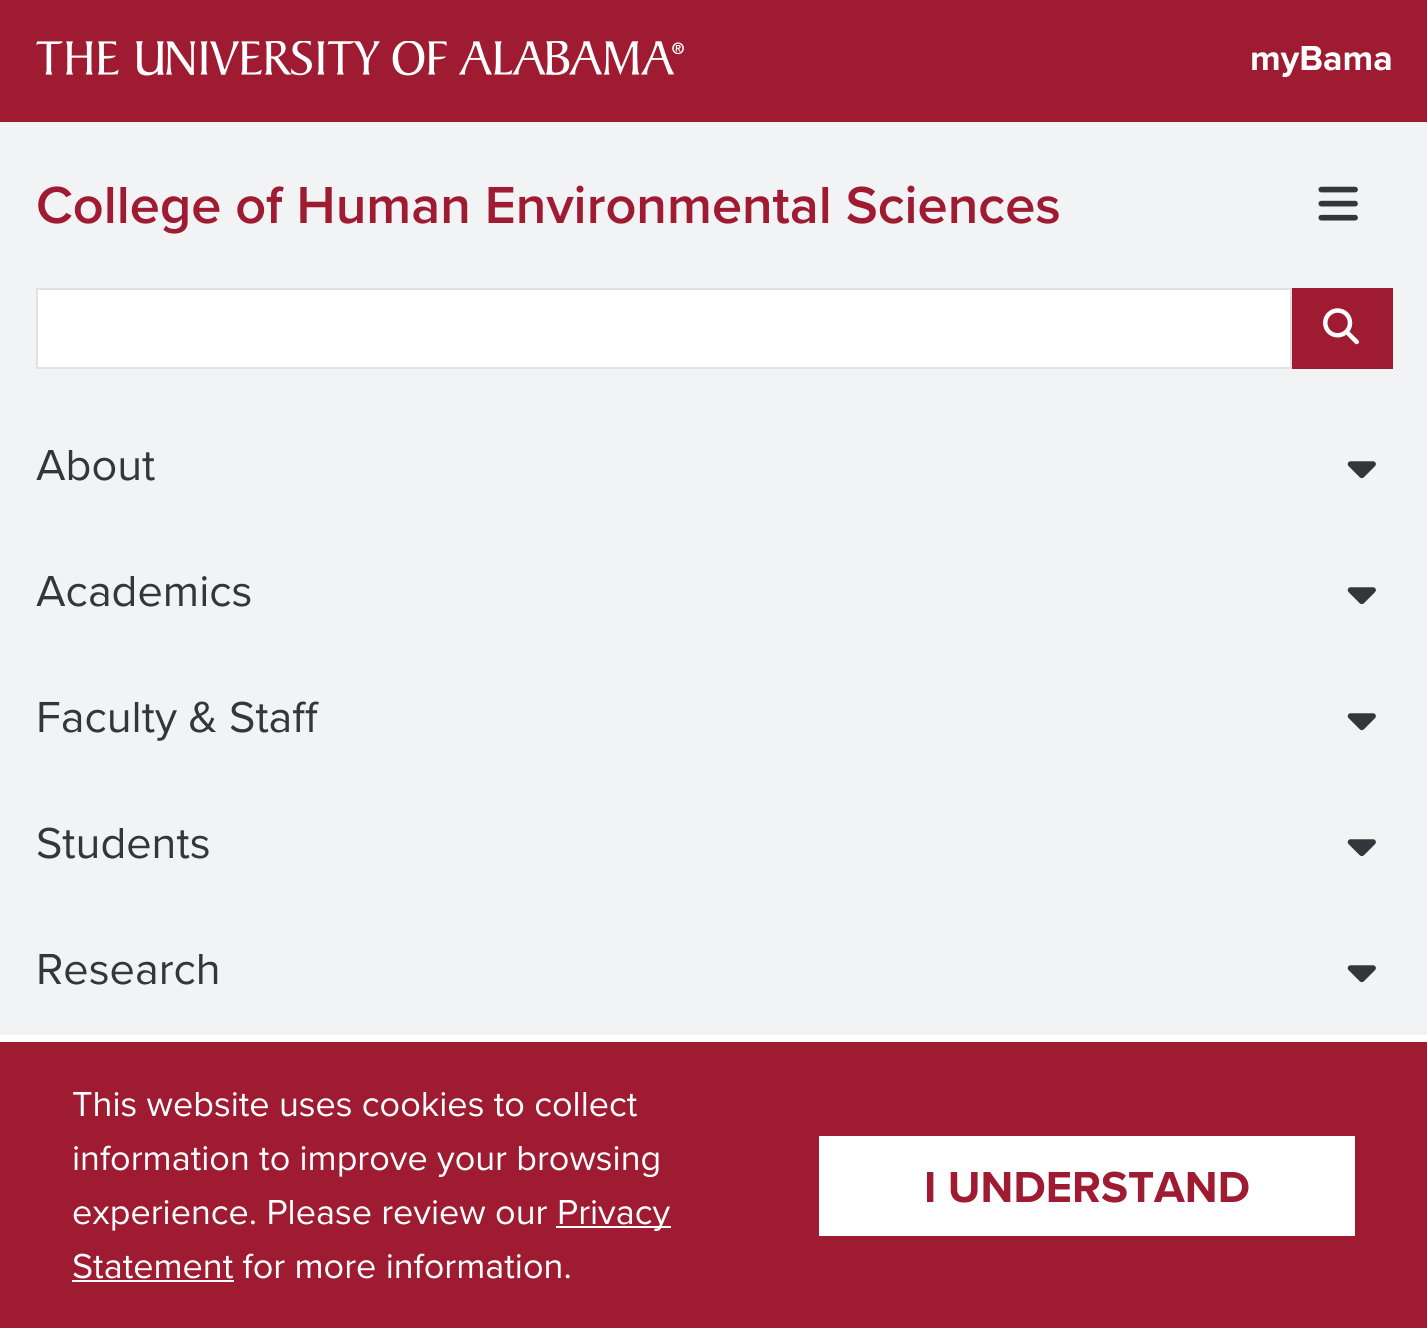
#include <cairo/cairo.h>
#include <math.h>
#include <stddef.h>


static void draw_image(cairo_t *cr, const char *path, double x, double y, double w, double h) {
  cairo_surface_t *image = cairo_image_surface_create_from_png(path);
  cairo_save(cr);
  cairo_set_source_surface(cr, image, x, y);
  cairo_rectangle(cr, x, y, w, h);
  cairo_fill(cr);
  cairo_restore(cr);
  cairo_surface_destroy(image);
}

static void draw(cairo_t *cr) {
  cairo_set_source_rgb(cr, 158 / 255.0, 27 / 255.0, 50 / 255.0);
  cairo_paint(cr);
  draw_image(cr, "images/1.png", 36, 41, 648, 35);
  cairo_set_source_rgb(cr, 242 / 255.0, 243 / 255.0, 244 / 255.0);
  cairo_rectangle(cr, 0, 122, 1427, 913);
  cairo_fill(cr);
  draw_image(cr, "images/2.png", 1318, 186, 40, 35);
  cairo_set_source_rgb(cr, 1, 1, 1);
  cairo_rectangle(cr, 37, 289, 1254, 79);
  cairo_fill_preserve(cr);
  cairo_set_source_rgb(cr, 223 / 255.0, 226 / 255.0, 229 / 255.0);
  cairo_stroke(cr);
  cairo_set_source_rgb(cr, 158 / 255.0, 27 / 255.0, 50 / 255.0);
  cairo_rectangle(cr, 1292, 288, 101, 81);
  cairo_fill(cr);
  draw_image(cr, "images/3.png", 1323, 308, 36, 37);
  draw_image(cr, "images/4.png", 1347, 461, 29, 18);
  draw_image(cr, "images/4.png", 1347, 587, 29, 18);
  draw_image(cr, "images/4.png", 1347, 713, 29, 18);
  draw_image(cr, "images/4.png", 1347, 839, 29, 18);
  draw_image(cr, "images/4.png", 1347, 965, 29, 18);
  cairo_set_source_rgb(cr, 1, 1, 1);
  cairo_rectangle(cr, 0, 1035, 1427, 7);
  cairo_fill(cr);
  cairo_rectangle(cr, 556, 1226, 115, 2);
  cairo_fill(cr);
  cairo_rectangle(cr, 72, 1280, 162, 2);
  cairo_fill(cr);
  cairo_rectangle(cr, 819, 1136, 536, 100);
  cairo_fill(cr);
  cairo_select_font_face(cr, "Proxima Nova", CAIRO_FONT_SLANT_NORMAL, CAIRO_FONT_WEIGHT_BOLD);
  cairo_set_font_size(cr, 36);
  cairo_move_to(cr, 1250, 70);
  cairo_show_text(cr, "myBama");
  cairo_select_font_face(cr, "Proxima Nova SemiBold", CAIRO_FONT_SLANT_NORMAL, CAIRO_FONT_WEIGHT_NORMAL);
  cairo_set_font_size(cr, 54);
  cairo_set_source_rgb(cr, 158 / 255.0, 27 / 255.0, 50 / 255.0);
  cairo_move_to(cr, 36, 223);
  cairo_show_text(cr, "College of Human Environmental Sciences");
  cairo_select_font_face(cr, "Proxima Nova", CAIRO_FONT_SLANT_NORMAL, CAIRO_FONT_WEIGHT_NORMAL);
  cairo_set_font_size(cr, 45);
  cairo_set_source_rgb(cr, 53 / 255.0, 54 / 255.0, 59 / 255.0);
  cairo_move_to(cr, 36, 480);
  cairo_show_text(cr, "About");
  cairo_move_to(cr, 36, 606);
  cairo_show_text(cr, "Academics");
  cairo_move_to(cr, 36, 732);
  cairo_show_text(cr, "Faculty & Staff");
  cairo_move_to(cr, 36, 858);
  cairo_show_text(cr, "Students");
  cairo_move_to(cr, 36, 984);
  cairo_show_text(cr, "Research");
  cairo_set_font_size(cr, 36);
  cairo_set_source_rgb(cr, 1, 1, 1);
  cairo_move_to(cr, 72, 1116);
  cairo_show_text(cr, "This website uses cookies to collect");
  cairo_move_to(cr, 72, 1170);
  cairo_show_text(cr, "information to improve your browsing");
  cairo_move_to(cr, 72, 1224);
  cairo_show_text(cr, "experience. Please review our");
  cairo_move_to(cr, 557, 1224);
  cairo_show_text(cr, "Privacy");
  cairo_move_to(cr, 72, 1278);
  cairo_show_text(cr, "Statement for more information.");
  cairo_select_font_face(cr, "Proxima Nova", CAIRO_FONT_SLANT_NORMAL, CAIRO_FONT_WEIGHT_BOLD);
  cairo_set_font_size(cr, 45);
  cairo_set_source_rgb(cr, 158 / 255.0, 27 / 255.0, 50 / 255.0);
  cairo_move_to(cr, 924, 1202);
  cairo_show_text(cr, "I UNDERSTAND");
}

int main(void) {
  cairo_surface_t *surface = cairo_image_surface_create(CAIRO_FORMAT_RGB24, 1427, 1328);
  cairo_t *cr = cairo_create(surface);
  cairo_font_options_t *options = cairo_font_options_create();
  cairo_font_options_set_hint_metrics(options, CAIRO_HINT_METRICS_OFF);
  cairo_font_options_set_hint_style(options, CAIRO_HINT_STYLE_NONE);
  cairo_set_font_options(cr, options);
  cairo_set_miter_limit(cr, 4);
  draw(cr);
  cairo_surface_write_to_png(surface, "out.png");
  cairo_font_options_destroy(options);
  cairo_destroy(cr);
  cairo_surface_destroy(surface);
  return 0;
}
